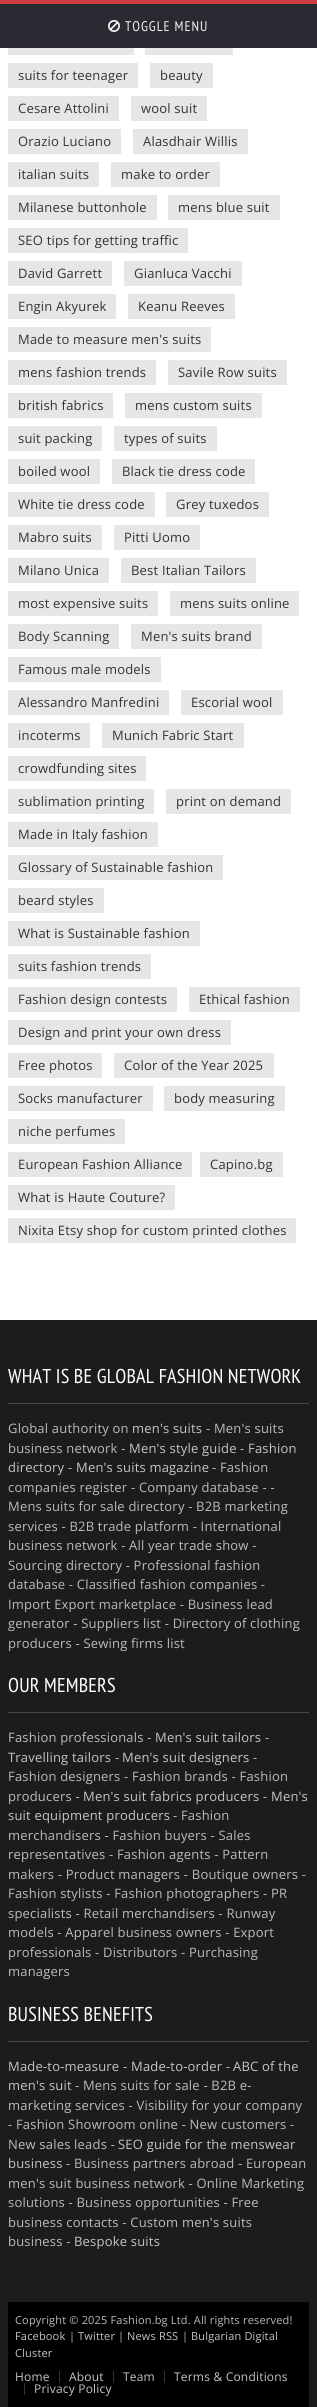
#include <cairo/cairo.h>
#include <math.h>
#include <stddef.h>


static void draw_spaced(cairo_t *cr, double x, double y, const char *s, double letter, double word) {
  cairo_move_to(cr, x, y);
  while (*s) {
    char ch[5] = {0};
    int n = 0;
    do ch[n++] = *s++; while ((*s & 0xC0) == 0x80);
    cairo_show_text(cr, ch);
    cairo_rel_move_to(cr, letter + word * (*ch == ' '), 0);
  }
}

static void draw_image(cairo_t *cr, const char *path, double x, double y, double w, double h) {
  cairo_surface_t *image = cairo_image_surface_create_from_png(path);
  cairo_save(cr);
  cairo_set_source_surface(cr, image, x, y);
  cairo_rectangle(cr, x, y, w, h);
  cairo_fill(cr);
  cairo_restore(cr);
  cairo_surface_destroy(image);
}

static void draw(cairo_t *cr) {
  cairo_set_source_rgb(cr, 1, 1, 1);
  cairo_paint(cr);
  cairo_set_source_rgb(cr, 41 / 255.0, 42 / 255.0, 50 / 255.0);
  cairo_rectangle(cr, 0, 4, 317, 44);
  cairo_fill(cr);
  cairo_set_source_rgb(cr, 205 / 255.0, 58 / 255.0, 63 / 255.0);
  cairo_rectangle(cr, 0, 0, 317, 4);
  cairo_fill(cr);
  draw_image(cr, "images/1.png", 108, 20, 12, 12);
  cairo_set_source_rgb(cr, 230 / 255.0, 230 / 255.0, 230 / 255.0);
  cairo_rectangle(cr, 8, 48, 126, 7);
  cairo_fill(cr);
  cairo_rectangle(cr, 145, 48, 88, 7);
  cairo_fill(cr);
  cairo_rectangle(cr, 8, 63, 130, 25);
  cairo_fill(cr);
  cairo_rectangle(cr, 150, 63, 63, 25);
  cairo_fill(cr);
  cairo_rectangle(cr, 8, 96, 111, 25);
  cairo_fill(cr);
  cairo_rectangle(cr, 131, 96, 76, 25);
  cairo_fill(cr);
  cairo_rectangle(cr, 8, 129, 113, 25);
  cairo_fill(cr);
  cairo_rectangle(cr, 133, 129, 115, 25);
  cairo_fill(cr);
  cairo_rectangle(cr, 8, 162, 91, 25);
  cairo_fill(cr);
  cairo_rectangle(cr, 111, 162, 109, 25);
  cairo_fill(cr);
  cairo_rectangle(cr, 8, 195, 149, 25);
  cairo_fill(cr);
  cairo_rectangle(cr, 168, 195, 112, 25);
  cairo_fill(cr);
  cairo_rectangle(cr, 8, 228, 180, 25);
  cairo_fill(cr);
  cairo_rectangle(cr, 8, 261, 104, 25);
  cairo_fill(cr);
  cairo_rectangle(cr, 124, 261, 118, 25);
  cairo_fill(cr);
  cairo_rectangle(cr, 8, 294, 108, 25);
  cairo_fill(cr);
  cairo_rectangle(cr, 128, 294, 107, 25);
  cairo_fill(cr);
  cairo_rectangle(cr, 8, 327, 203, 25);
  cairo_fill(cr);
  cairo_rectangle(cr, 8, 360, 148, 25);
  cairo_fill(cr);
  cairo_rectangle(cr, 168, 360, 119, 25);
  cairo_fill(cr);
  cairo_rectangle(cr, 8, 393, 105, 25);
  cairo_fill(cr);
  cairo_rectangle(cr, 125, 393, 137, 25);
  cairo_fill(cr);
  cairo_rectangle(cr, 8, 426, 94, 25);
  cairo_fill(cr);
  cairo_rectangle(cr, 114, 426, 103, 25);
  cairo_fill(cr);
  cairo_rectangle(cr, 8, 459, 92, 25);
  cairo_fill(cr);
  cairo_rectangle(cr, 112, 459, 143, 25);
  cairo_fill(cr);
  cairo_rectangle(cr, 8, 492, 147, 25);
  cairo_fill(cr);
  cairo_rectangle(cr, 166, 492, 103, 25);
  cairo_fill(cr);
  cairo_rectangle(cr, 8, 525, 94, 25);
  cairo_fill(cr);
  cairo_rectangle(cr, 114, 525, 86, 25);
  cairo_fill(cr);
  cairo_rectangle(cr, 8, 558, 101, 25);
  cairo_fill(cr);
  cairo_rectangle(cr, 121, 558, 135, 25);
  cairo_fill(cr);
  cairo_rectangle(cr, 8, 591, 150, 25);
  cairo_fill(cr);
  cairo_rectangle(cr, 170, 591, 129, 25);
  cairo_fill(cr);
  cairo_rectangle(cr, 8, 624, 111, 25);
  cairo_fill(cr);
  cairo_rectangle(cr, 131, 624, 131, 25);
  cairo_fill(cr);
  cairo_rectangle(cr, 8, 657, 153, 25);
  cairo_fill(cr);
  cairo_rectangle(cr, 8, 690, 161, 25);
  cairo_fill(cr);
  cairo_rectangle(cr, 181, 690, 102, 25);
  cairo_fill(cr);
  cairo_rectangle(cr, 8, 723, 82, 25);
  cairo_fill(cr);
  cairo_rectangle(cr, 102, 723, 142, 25);
  cairo_fill(cr);
  cairo_rectangle(cr, 8, 756, 138, 25);
  cairo_fill(cr);
  cairo_rectangle(cr, 8, 789, 146, 25);
  cairo_fill(cr);
  cairo_rectangle(cr, 166, 789, 125, 25);
  cairo_fill(cr);
  cairo_rectangle(cr, 8, 822, 150, 25);
  cairo_fill(cr);
  cairo_rectangle(cr, 8, 855, 215, 25);
  cairo_fill(cr);
  cairo_rectangle(cr, 8, 888, 96, 25);
  cairo_fill(cr);
  cairo_rectangle(cr, 8, 921, 192, 25);
  cairo_fill(cr);
  cairo_rectangle(cr, 8, 954, 143, 25);
  cairo_fill(cr);
  cairo_rectangle(cr, 8, 987, 169, 25);
  cairo_fill(cr);
  cairo_rectangle(cr, 189, 987, 111, 25);
  cairo_fill(cr);
  cairo_rectangle(cr, 8, 1020, 223, 25);
  cairo_fill(cr);
  cairo_rectangle(cr, 8, 1053, 94, 25);
  cairo_fill(cr);
  cairo_rectangle(cr, 114, 1053, 160, 25);
  cairo_fill(cr);
  cairo_rectangle(cr, 8, 1086, 145, 25);
  cairo_fill(cr);
  cairo_rectangle(cr, 164, 1086, 121, 25);
  cairo_fill(cr);
  cairo_rectangle(cr, 8, 1119, 117, 25);
  cairo_fill(cr);
  cairo_rectangle(cr, 8, 1152, 184, 25);
  cairo_fill(cr);
  cairo_rectangle(cr, 200, 1152, 83, 25);
  cairo_fill(cr);
  cairo_rectangle(cr, 8, 1185, 167, 25);
  cairo_fill(cr);
  cairo_rectangle(cr, 8, 1218, 288, 25);
  cairo_fill(cr);
  cairo_set_source_rgb(cr, 28 / 255.0, 28 / 255.0, 28 / 255.0);
  cairo_rectangle(cr, 0, 1320, 317, 1087);
  cairo_fill(cr);
  cairo_set_source_rgb(cr, 73 / 255.0, 73 / 255.0, 73 / 255.0);
  cairo_rectangle(cr, 8, 1403, 301, 1);
  cairo_fill(cr);
  cairo_rectangle(cr, 8, 1712, 301, 1);
  cairo_fill(cr);
  cairo_rectangle(cr, 8, 2041, 301, 1);
  cairo_fill(cr);
  cairo_set_source_rgb(cr, 0, 0, 0);
  cairo_rectangle(cr, 8, 2302, 301, 105);
  cairo_fill(cr);
  cairo_set_source_rgb(cr, 51 / 255.0, 51 / 255.0, 51 / 255.0);
  cairo_rectangle(cr, 59, 2371, 1, 12);
  cairo_fill(cr);
  cairo_rectangle(cr, 113, 2371, 1, 12);
  cairo_fill(cr);
  cairo_rectangle(cr, 164, 2371, 1, 12);
  cairo_fill(cr);
  cairo_rectangle(cr, 24, 2383, 1, 12);
  cairo_fill(cr);
  cairo_select_font_face(cr, "PT Sans Narrow", CAIRO_FONT_SLANT_NORMAL, CAIRO_FONT_WEIGHT_NORMAL);
  cairo_set_font_size(cr, 14);
  cairo_set_source_rgb(cr, 241 / 255.0, 241 / 255.0, 241 / 255.0);
  draw_spaced(cr, 125, 31, "TOGGLE MENU", 1, 0);
  cairo_select_font_face(cr, "Open Sans", CAIRO_FONT_SLANT_NORMAL, CAIRO_FONT_WEIGHT_NORMAL);
  cairo_set_font_size(cr, 13);
  cairo_set_source_rgb(cr, 51 / 255.0, 51 / 255.0, 51 / 255.0);
  draw_spaced(cr, 18, 80, "suits for teenager", 0.2, 0);
  draw_spaced(cr, 160, 80, "beauty", 0.2, 0);
  draw_spaced(cr, 18, 113, "Cesare Attolini", 0.2, 0);
  draw_spaced(cr, 141, 113, "wool suit", 0.2, 0);
  draw_spaced(cr, 18, 146, "Orazio Luciano", 0.2, 0);
  draw_spaced(cr, 143, 146, "Alasdhair Willis", 0.2, 0);
  draw_spaced(cr, 18, 179, "italian suits", 0.2, 0);
  draw_spaced(cr, 121, 179, "make to order", 0.2, 0);
  draw_spaced(cr, 18, 212, "Milanese buttonhole", 0.2, 0);
  draw_spaced(cr, 178, 212, "mens blue suit", 0.2, 0);
  draw_spaced(cr, 18, 245, "SEO tips for getting traffic", 0.2, 0);
  draw_spaced(cr, 18, 278, "David Garrett", 0.2, 0);
  draw_spaced(cr, 134, 278, "Gianluca Vacchi", 0.2, 0);
  draw_spaced(cr, 18, 311, "Engin Akyurek", 0.2, 0);
  draw_spaced(cr, 138, 311, "Keanu Reeves", 0.2, 0);
  draw_spaced(cr, 18, 344, "Made to measure men's suits", 0.2, 0);
  draw_spaced(cr, 18, 377, "mens fashion trends", 0.2, 0);
  draw_spaced(cr, 178, 377, "Savile Row suits", 0.2, 0);
  draw_spaced(cr, 18, 410, "british fabrics", 0.2, 0);
  draw_spaced(cr, 135, 410, "mens custom suits", 0.2, 0);
  draw_spaced(cr, 18, 443, "suit packing", 0.2, 0);
  draw_spaced(cr, 124, 443, "types of suits", 0.2, 0);
  draw_spaced(cr, 18, 476, "boiled wool", 0.2, 0);
  draw_spaced(cr, 122, 476, "Black tie dress code", 0.2, 0);
  draw_spaced(cr, 18, 509, "White tie dress code", 0.2, 0);
  draw_spaced(cr, 176, 509, "Grey tuxedos", 0.2, 0);
  draw_spaced(cr, 18, 542, "Mabro suits", 0.2, 0);
  draw_spaced(cr, 124, 542, "Pitti Uomo", 0.2, 0);
  draw_spaced(cr, 18, 575, "Milano Unica", 0.2, 0);
  draw_spaced(cr, 131, 575, "Best Italian Tailors", 0.2, 0);
  draw_spaced(cr, 18, 608, "most expensive suits", 0.2, 0);
  draw_spaced(cr, 180, 608, "mens suits online", 0.2, 0);
  draw_spaced(cr, 18, 641, "Body Scanning", 0.2, 0);
  draw_spaced(cr, 141, 641, "Men's suits brand", 0.2, 0);
  draw_spaced(cr, 18, 674, "Famous male models", 0.2, 0);
  draw_spaced(cr, 18, 707, "Alessandro Manfredini", 0.2, 0);
  draw_spaced(cr, 191, 707, "Escorial wool", 0.2, 0);
  draw_spaced(cr, 18, 740, "incoterms", 0.2, 0);
  draw_spaced(cr, 112, 740, "Munich Fabric Start", 0.2, 0);
  draw_spaced(cr, 18, 773, "crowdfunding sites", 0.2, 0);
  draw_spaced(cr, 18, 806, "sublimation printing", 0.2, 0);
  draw_spaced(cr, 176, 806, "print on demand", 0.2, 0);
  draw_spaced(cr, 18, 839, "Made in Italy fashion", 0.2, 0);
  draw_spaced(cr, 18, 872, "Glossary of Sustainable fashion", 0.2, 0);
  draw_spaced(cr, 18, 905, "beard styles", 0.2, 0);
  draw_spaced(cr, 18, 938, "What is Sustainable fashion", 0.2, 0);
  draw_spaced(cr, 18, 971, "suits fashion trends", 0.2, 0);
  draw_spaced(cr, 18, 1004, "Fashion design contests", 0.2, 0);
  draw_spaced(cr, 199, 1004, "Ethical fashion", 0.2, 0);
  draw_spaced(cr, 18, 1037, "Design and print your own dress", 0.2, 0);
  draw_spaced(cr, 18, 1070, "Free photos", 0.2, 0);
  draw_spaced(cr, 124, 1070, "Color of the Year 2025", 0.2, 0);
  draw_spaced(cr, 18, 1103, "Socks manufacturer", 0.2, 0);
  draw_spaced(cr, 174, 1103, "body measuring", 0.2, 0);
  draw_spaced(cr, 18, 1136, "niche perfumes", 0.2, 0);
  draw_spaced(cr, 18, 1169, "European Fashion Alliance", 0.2, 0);
  draw_spaced(cr, 210, 1169, "Capino.bg", 0.2, 0);
  draw_spaced(cr, 18, 1202, "What is Haute Couture?", 0.2, 0);
  draw_spaced(cr, 18, 1235, "Nixita Etsy shop for custom printed clothes", 0.2, 0);
  cairo_select_font_face(cr, "PT Sans Narrow", CAIRO_FONT_SLANT_NORMAL, CAIRO_FONT_WEIGHT_NORMAL);
  cairo_set_font_size(cr, 20);
  cairo_set_source_rgb(cr, 1, 1, 1);
  draw_spaced(cr, 8, 1383, "WHAT IS BE GLOBAL FASHION NETWORK", 0.2, 0);
  cairo_select_font_face(cr, "Open Sans", CAIRO_FONT_SLANT_NORMAL, CAIRO_FONT_WEIGHT_NORMAL);
  cairo_set_font_size(cr, 13);
  cairo_set_source_rgb(cr, 187 / 255.0, 187 / 255.0, 187 / 255.0);
  draw_spaced(cr, 8, 1433, "Global authority on", 0.2, 0);
  cairo_set_source_rgb(cr, 197 / 255.0, 197 / 255.0, 197 / 255.0);
  draw_spaced(cr, 132, 1433, "men's suits", 0.2, 0);
  cairo_set_source_rgb(cr, 187 / 255.0, 187 / 255.0, 187 / 255.0);
  draw_spaced(cr, 206, 1433, "- Men's suits", 0.2, 0);
  draw_spaced(cr, 8, 1453, "business network -", 0.2, 0);
  cairo_set_source_rgb(cr, 197 / 255.0, 197 / 255.0, 197 / 255.0);
  draw_spaced(cr, 129, 1453, "Men's style guide", 0.2, 0);
  cairo_set_source_rgb(cr, 187 / 255.0, 187 / 255.0, 187 / 255.0);
  draw_spaced(cr, 240, 1453, "-", 0.2, 0);
  cairo_set_source_rgb(cr, 197 / 255.0, 197 / 255.0, 197 / 255.0);
  draw_spaced(cr, 248, 1453, "Fashion", 0.2, 0);
  draw_spaced(cr, 8, 1472, "directory", 0.2, 0);
  cairo_set_source_rgb(cr, 187 / 255.0, 187 / 255.0, 187 / 255.0);
  draw_spaced(cr, 68, 1472, "-", 0.2, 0);
  cairo_set_source_rgb(cr, 197 / 255.0, 197 / 255.0, 197 / 255.0);
  draw_spaced(cr, 76, 1472, "Men's suits magazine", 0.2, 0);
  cairo_set_source_rgb(cr, 187 / 255.0, 187 / 255.0, 187 / 255.0);
  draw_spaced(cr, 212, 1472, "- Fashion", 0.2, 0);
  draw_spaced(cr, 8, 1492, "companies register - Company database - -", 0.2, 0);
  draw_spaced(cr, 8, 1511, "Mens suits for sale directory - B2B marketing", 0.2, 0);
  draw_spaced(cr, 8, 1531, "services - B2B trade platform - International", 0.2, 0);
  draw_spaced(cr, 8, 1550, "business network - All year trade show -", 0.2, 0);
  draw_spaced(cr, 8, 1570, "Sourcing directory - Professional fashion", 0.2, 0);
  draw_spaced(cr, 8, 1589, "database - Classified fashion companies -", 0.2, 0);
  draw_spaced(cr, 8, 1609, "Import Export marketplace - Business lead", 0.2, 0);
  draw_spaced(cr, 8, 1628, "generator - Suppliers list - Directory of clothing", 0.2, 0);
  draw_spaced(cr, 8, 1648, "producers - Sewing firms list", 0.2, 0);
  cairo_select_font_face(cr, "PT Sans Narrow", CAIRO_FONT_SLANT_NORMAL, CAIRO_FONT_WEIGHT_NORMAL);
  cairo_set_font_size(cr, 20);
  cairo_set_source_rgb(cr, 1, 1, 1);
  draw_spaced(cr, 8, 1692, "OUR MEMBERS", 0.2, 0);
  cairo_select_font_face(cr, "Open Sans", CAIRO_FONT_SLANT_NORMAL, CAIRO_FONT_WEIGHT_NORMAL);
  cairo_set_font_size(cr, 13);
  cairo_set_source_rgb(cr, 187 / 255.0, 187 / 255.0, 187 / 255.0);
  draw_spaced(cr, 8, 1742, "Fashion professionals -", 0.2, 0);
  cairo_set_source_rgb(cr, 197 / 255.0, 197 / 255.0, 197 / 255.0);
  draw_spaced(cr, 155, 1742, "Men's suit tailors", 0.2, 0);
  cairo_set_source_rgb(cr, 187 / 255.0, 187 / 255.0, 187 / 255.0);
  draw_spaced(cr, 265, 1742, "-", 0.2, 0);
  cairo_set_source_rgb(cr, 197 / 255.0, 197 / 255.0, 197 / 255.0);
  draw_spaced(cr, 8, 1762, "Travelling tailors", 0.2, 0);
  cairo_set_source_rgb(cr, 187 / 255.0, 187 / 255.0, 187 / 255.0);
  draw_spaced(cr, 115, 1762, "-", 0.2, 0);
  cairo_set_source_rgb(cr, 197 / 255.0, 197 / 255.0, 197 / 255.0);
  draw_spaced(cr, 122, 1762, "Men's suit designers", 0.2, 0);
  cairo_set_source_rgb(cr, 187 / 255.0, 187 / 255.0, 187 / 255.0);
  draw_spaced(cr, 253, 1762, "-", 0.2, 0);
  draw_spaced(cr, 8, 1781, "Fashion designers - Fashion brands - Fashion", 0.2, 0);
  draw_spaced(cr, 8, 1801, "producers -", 0.2, 0);
  cairo_set_source_rgb(cr, 197 / 255.0, 197 / 255.0, 197 / 255.0);
  draw_spaced(cr, 83, 1801, "Men's suit fabrics producers", 0.2, 0);
  cairo_set_source_rgb(cr, 187 / 255.0, 187 / 255.0, 187 / 255.0);
  draw_spaced(cr, 263, 1801, "-", 0.2, 0);
  cairo_set_source_rgb(cr, 197 / 255.0, 197 / 255.0, 197 / 255.0);
  draw_spaced(cr, 271, 1801, "Men's", 0.2, 0);
  draw_spaced(cr, 8, 1820, "suit equipment producers", 0.2, 0);
  cairo_set_source_rgb(cr, 187 / 255.0, 187 / 255.0, 187 / 255.0);
  draw_spaced(cr, 173, 1820, "- Fashion", 0.2, 0);
  draw_spaced(cr, 8, 1840, "merchandisers - Fashion buyers - Sales", 0.2, 0);
  draw_spaced(cr, 8, 1859, "representatives - Fashion agents - Pattern", 0.2, 0);
  draw_spaced(cr, 8, 1879, "makers - Product managers - Boutique owners -", 0.2, 0);
  draw_spaced(cr, 8, 1898, "Fashion stylists - Fashion photographers - PR", 0.2, 0);
  draw_spaced(cr, 8, 1918, "specialists - Retail merchandisers - Runway", 0.2, 0);
  draw_spaced(cr, 8, 1937, "models - Apparel business owners - Export", 0.2, 0);
  draw_spaced(cr, 8, 1957, "professionals - Distributors - Purchasing", 0.2, 0);
  draw_spaced(cr, 8, 1976, "managers", 0.2, 0);
  cairo_select_font_face(cr, "PT Sans Narrow", CAIRO_FONT_SLANT_NORMAL, CAIRO_FONT_WEIGHT_NORMAL);
  cairo_set_font_size(cr, 20);
  cairo_set_source_rgb(cr, 1, 1, 1);
  draw_spaced(cr, 8, 2021, "BUSINESS BENEFITS", 0.2, 0);
  cairo_select_font_face(cr, "Open Sans", CAIRO_FONT_SLANT_NORMAL, CAIRO_FONT_WEIGHT_NORMAL);
  cairo_set_font_size(cr, 13);
  cairo_set_source_rgb(cr, 197 / 255.0, 197 / 255.0, 197 / 255.0);
  draw_spaced(cr, 8, 2071, "Made-to-measure", 0.2, 0);
  cairo_set_source_rgb(cr, 187 / 255.0, 187 / 255.0, 187 / 255.0);
  draw_spaced(cr, 123, 2071, "-", 0.2, 0);
  cairo_set_source_rgb(cr, 197 / 255.0, 197 / 255.0, 197 / 255.0);
  draw_spaced(cr, 131, 2071, "Made-to-order", 0.2, 0);
  cairo_set_source_rgb(cr, 187 / 255.0, 187 / 255.0, 187 / 255.0);
  draw_spaced(cr, 226, 2071, "-", 0.2, 0);
  cairo_set_source_rgb(cr, 197 / 255.0, 197 / 255.0, 197 / 255.0);
  draw_spaced(cr, 233, 2071, "ABC of the", 0.2, 0);
  draw_spaced(cr, 8, 2090, "men's suit", 0.2, 0);
  cairo_set_source_rgb(cr, 187 / 255.0, 187 / 255.0, 187 / 255.0);
  draw_spaced(cr, 75, 2090, "- Mens suits for sale - B2B e-", 0.2, 0);
  draw_spaced(cr, 8, 2110, "marketing services - Visibility for your company", 0.2, 0);
  draw_spaced(cr, 8, 2129, "- Fashion Showroom online - New customers -", 0.2, 0);
  draw_spaced(cr, 8, 2149, "New sales leads -", 0.2, 0);
  cairo_set_source_rgb(cr, 197 / 255.0, 197 / 255.0, 197 / 255.0);
  draw_spaced(cr, 118, 2149, "SEO guide for the menswear", 0.2, 0);
  draw_spaced(cr, 8, 2168, "business", 0.2, 0);
  cairo_set_source_rgb(cr, 187 / 255.0, 187 / 255.0, 187 / 255.0);
  draw_spaced(cr, 66, 2168, "- Business partners abroad - European", 0.2, 0);
  draw_spaced(cr, 8, 2188, "men's suit business network - Online Marketing", 0.2, 0);
  draw_spaced(cr, 8, 2207, "solutions - Business opportunities - Free", 0.2, 0);
  draw_spaced(cr, 8, 2227, "business contacts - Custom men's suits", 0.2, 0);
  draw_spaced(cr, 8, 2246, "business -", 0.2, 0);
  cairo_set_source_rgb(cr, 197 / 255.0, 197 / 255.0, 197 / 255.0);
  draw_spaced(cr, 74, 2246, "Bespoke suits", 0.2, 0);
  cairo_set_font_size(cr, 11);
  cairo_set_source_rgb(cr, 187 / 255.0, 187 / 255.0, 187 / 255.0);
  draw_spaced(cr, 15, 2324, "Copyright © 2025 Fashion.bg Ltd. All rights reserved!", 0.17, 0);
  cairo_set_source_rgb(cr, 197 / 255.0, 197 / 255.0, 197 / 255.0);
  draw_spaced(cr, 15, 2340, "Facebook", 0.17, 0);
  cairo_set_source_rgb(cr, 187 / 255.0, 187 / 255.0, 187 / 255.0);
  draw_spaced(cr, 69, 2340, "|", 0.17, 0);
  cairo_set_source_rgb(cr, 197 / 255.0, 197 / 255.0, 197 / 255.0);
  draw_spaced(cr, 78, 2340, "Twitter", 0.17, 0);
  cairo_set_source_rgb(cr, 187 / 255.0, 187 / 255.0, 187 / 255.0);
  draw_spaced(cr, 118, 2340, "|", 0.17, 0);
  cairo_set_source_rgb(cr, 197 / 255.0, 197 / 255.0, 197 / 255.0);
  draw_spaced(cr, 127, 2340, "News RSS", 0.17, 0);
  cairo_set_source_rgb(cr, 187 / 255.0, 187 / 255.0, 187 / 255.0);
  draw_spaced(cr, 182, 2340, "|", 0.17, 0);
  cairo_set_source_rgb(cr, 197 / 255.0, 197 / 255.0, 197 / 255.0);
  draw_spaced(cr, 191, 2340, "Bulgarian Digital", 0.17, 0);
  draw_spaced(cr, 15, 2357, "Cluster", 0.17, 0);
  cairo_set_font_size(cr, 12);
  draw_spaced(cr, 15, 2381, "Home", 0.2, 0);
  draw_spaced(cr, 69, 2381, "About", 0.2, 0);
  draw_spaced(cr, 123, 2381, "Team", 0.2, 0);
  draw_spaced(cr, 174, 2381, "Terms & Conditions", 0.2, 0);
  draw_spaced(cr, 34, 2393, "Privacy Policy", 0.2, 0);
}

int main(void) {
  cairo_surface_t *surface = cairo_image_surface_create(CAIRO_FORMAT_RGB24, 317, 2407);
  cairo_t *cr = cairo_create(surface);
  cairo_font_options_t *options = cairo_font_options_create();
  cairo_font_options_set_hint_metrics(options, CAIRO_HINT_METRICS_OFF);
  cairo_font_options_set_hint_style(options, CAIRO_HINT_STYLE_NONE);
  cairo_set_font_options(cr, options);
  cairo_set_miter_limit(cr, 4);
  draw(cr);
  cairo_surface_write_to_png(surface, "out.png");
  cairo_font_options_destroy(options);
  cairo_destroy(cr);
  cairo_surface_destroy(surface);
  return 0;
}
